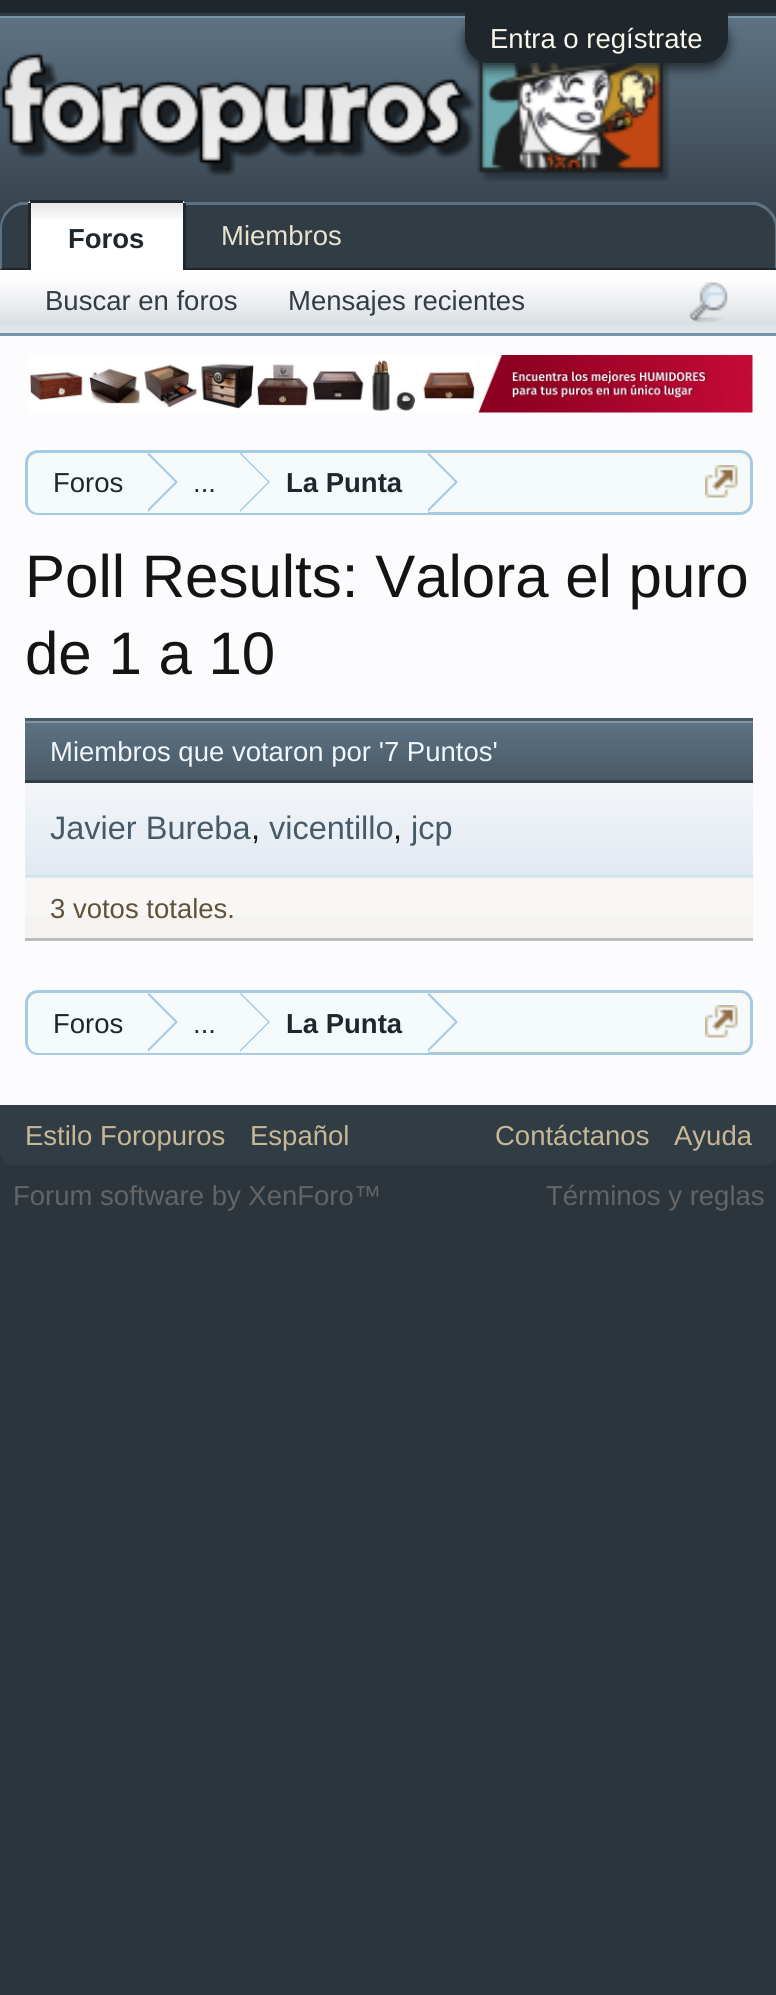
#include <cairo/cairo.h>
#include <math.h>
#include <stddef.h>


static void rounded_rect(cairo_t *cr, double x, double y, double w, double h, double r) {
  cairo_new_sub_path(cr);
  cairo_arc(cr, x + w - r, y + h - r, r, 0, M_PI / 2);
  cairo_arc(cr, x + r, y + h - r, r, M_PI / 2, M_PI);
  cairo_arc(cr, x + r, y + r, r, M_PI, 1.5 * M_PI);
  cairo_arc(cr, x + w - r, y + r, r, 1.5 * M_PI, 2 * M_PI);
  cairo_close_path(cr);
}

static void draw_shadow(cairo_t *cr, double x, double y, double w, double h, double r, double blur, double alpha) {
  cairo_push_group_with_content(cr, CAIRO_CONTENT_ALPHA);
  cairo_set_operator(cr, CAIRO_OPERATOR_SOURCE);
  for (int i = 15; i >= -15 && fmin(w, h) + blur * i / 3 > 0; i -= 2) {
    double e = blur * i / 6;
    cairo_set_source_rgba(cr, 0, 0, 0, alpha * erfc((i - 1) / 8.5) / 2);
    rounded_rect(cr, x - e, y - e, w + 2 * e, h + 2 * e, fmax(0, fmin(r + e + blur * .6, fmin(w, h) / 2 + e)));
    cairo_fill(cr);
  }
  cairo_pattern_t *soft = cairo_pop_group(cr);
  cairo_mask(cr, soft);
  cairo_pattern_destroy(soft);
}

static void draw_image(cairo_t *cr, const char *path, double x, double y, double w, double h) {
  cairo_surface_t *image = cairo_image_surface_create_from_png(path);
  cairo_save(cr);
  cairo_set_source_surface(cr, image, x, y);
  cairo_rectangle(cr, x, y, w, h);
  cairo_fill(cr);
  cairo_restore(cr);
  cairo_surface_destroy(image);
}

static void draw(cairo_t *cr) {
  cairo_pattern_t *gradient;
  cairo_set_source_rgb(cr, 44 / 255.0, 53 / 255.0, 60 / 255.0);
  cairo_paint(cr);
  cairo_set_source_rgb(cr, 31 / 255.0, 39 / 255.0, 44 / 255.0);
  cairo_rectangle(cr, 0, 0, 776, 13);
  cairo_fill(cr);
  cairo_set_source_rgb(cr, 50 / 255.0, 60 / 255.0, 68 / 255.0);
  cairo_rectangle(cr, 0, 13, 776, 3);
  cairo_fill(cr);
  gradient = cairo_pattern_create_linear(389, 17, 389, 333);
  cairo_pattern_add_color_stop_rgba(gradient, 0, 93 / 255.0, 115 / 255.0, 132 / 255.0, 1);
  cairo_pattern_add_color_stop_rgba(gradient, 0.8, 44 / 255.0, 53 / 255.0, 60 / 255.0, 1);
  cairo_set_source(cr, gradient);
  cairo_pattern_destroy(gradient);
  cairo_rectangle(cr, 0, 18, 776, 210);
  cairo_fill(cr);
  cairo_set_source_rgb(cr, 119 / 255.0, 148 / 255.0, 168 / 255.0);
  cairo_rectangle(cr, 0, 16, 776, 2);
  cairo_fill(cr);
  draw_image(cr, "images/1.png", 0, 52, 670, 130);
  cairo_set_source_rgb(cr, 31 / 255.0, 39 / 255.0, 44 / 255.0);
  draw_shadow(cr, 465, 18, 263, 50, 25, 6, 1);
  cairo_set_source_rgb(cr, 31 / 255.0, 39 / 255.0, 44 / 255.0);
  cairo_new_path(cr);
  cairo_move_to(cr, 465, 13);
  cairo_line_to(cr, 728, 13);
  cairo_line_to(cr, 728, 38);
  cairo_curve_to(cr, 728, 52, 717, 63, 703, 63);
  cairo_line_to(cr, 490, 63);
  cairo_curve_to(cr, 476, 63, 465, 52, 465, 38);
  cairo_close_path(cr);
  cairo_fill(cr);
  cairo_set_source_rgb(cr, 50 / 255.0, 60 / 255.0, 68 / 255.0);
  cairo_new_path(cr);
  cairo_move_to(cr, 25, 203);
  cairo_line_to(cr, 753, 203);
  cairo_curve_to(cr, 767, 203, 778, 214, 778, 228);
  cairo_line_to(cr, 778, 270);
  cairo_line_to(cr, 0, 270);
  cairo_line_to(cr, 0, 228);
  cairo_curve_to(cr, 0, 214, 11, 203, 25, 203);
  cairo_close_path(cr);
  cairo_fill(cr);
  cairo_set_source_rgb(cr, 93 / 255.0, 115 / 255.0, 132 / 255.0);
  cairo_new_path(cr);
  cairo_move_to(cr, 25, 205);
  cairo_curve_to(cr, 19, 205, 13, 207, 9, 212);
  cairo_line_to(cr, 7, 210);
  cairo_curve_to(cr, 11, 206, 15, 204, 20, 202);
  cairo_line_to(cr, 757, 202);
  cairo_curve_to(cr, 762, 204, 767, 206, 770, 210);
  cairo_line_to(cr, 768, 212);
  cairo_curve_to(cr, 764, 208, 758, 205, 752, 205);
  cairo_close_path(cr);
  cairo_fill(cr);
  cairo_new_path(cr);
  cairo_move_to(cr, 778, 223);
  cairo_line_to(cr, 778, 270);
  cairo_line_to(cr, 775, 268);
  cairo_line_to(cr, 775, 228);
  cairo_curve_to(cr, 775, 222, 772, 216, 768, 212);
  cairo_line_to(cr, 770, 210);
  cairo_curve_to(cr, 774, 213, 776, 218, 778, 223);
  cairo_close_path(cr);
  cairo_fill(cr);
  cairo_set_source_rgb(cr, 31 / 255.0, 39 / 255.0, 44 / 255.0);
  cairo_new_path(cr);
  cairo_move_to(cr, 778, 270);
  cairo_line_to(cr, 775, 268);
  cairo_line_to(cr, 2, 268);
  cairo_line_to(cr, 0, 270);
  cairo_close_path(cr);
  cairo_fill(cr);
  cairo_set_source_rgb(cr, 93 / 255.0, 115 / 255.0, 132 / 255.0);
  cairo_new_path(cr);
  cairo_move_to(cr, 0, 270);
  cairo_line_to(cr, 2, 268);
  cairo_line_to(cr, 2, 228);
  cairo_curve_to(cr, 2, 221, 5, 216, 9, 212);
  cairo_line_to(cr, 7, 210);
  cairo_curve_to(cr, 3, 214, 0, 221, 0, 228);
  cairo_close_path(cr);
  cairo_fill(cr);
  cairo_set_source_rgb(cr, 1, 1, 1);
  cairo_new_path(cr);
  cairo_move_to(cr, 33, 200);
  cairo_line_to(cr, 180, 200);
  cairo_curve_to(cr, 183, 200, 185, 202, 185, 205);
  cairo_line_to(cr, 185, 270);
  cairo_line_to(cr, 28, 270);
  cairo_line_to(cr, 28, 205);
  cairo_curve_to(cr, 28, 202, 30, 200, 33, 200);
  cairo_close_path(cr);
  cairo_fill(cr);
  gradient = cairo_pattern_create_linear(106, 203, 106, 270);
  cairo_pattern_add_color_stop_rgba(gradient, 0, 0, 0, 0, 0.1);
  cairo_pattern_add_color_stop_rgba(gradient, 0.3, 0, 0, 0, 0);
  cairo_set_source(cr, gradient);
  cairo_pattern_destroy(gradient);
  cairo_rectangle(cr, 31, 203, 152, 16);
  cairo_fill(cr);
  cairo_set_source_rgb(cr, 31 / 255.0, 39 / 255.0, 44 / 255.0);
  cairo_rectangle(cr, 30, 200, 153, 3);
  cairo_fill(cr);
  cairo_rectangle(cr, 183, 203, 3, 67);
  cairo_fill(cr);
  cairo_rectangle(cr, 28, 203, 3, 67);
  cairo_fill(cr);
  gradient = cairo_pattern_create_linear(389, 333, 389, 270);
  cairo_pattern_add_color_stop_rgba(gradient, 0, 231 / 255.0, 234 / 255.0, 237 / 255.0, 1);
  cairo_pattern_add_color_stop_rgba(gradient, 0.15, 217 / 255.0, 224 / 255.0, 227 / 255.0, 1);
  cairo_pattern_add_color_stop_rgba(gradient, 0.5, 238 / 255.0, 239 / 255.0, 242 / 255.0, 1);
  cairo_pattern_add_color_stop_rgba(gradient, 0.9, 1, 1, 1, 1);
  cairo_set_source(cr, gradient);
  cairo_pattern_destroy(gradient);
  cairo_rectangle(cr, 0, 270, 776, 63);
  cairo_fill(cr);
  cairo_set_source_rgb(cr, 119 / 255.0, 148 / 255.0, 168 / 255.0);
  cairo_rectangle(cr, 0, 333, 776, 3);
  cairo_fill(cr);
  draw_image(cr, "images/2.png", 689, 282, 39, 41);
  cairo_set_source_rgb(cr, 252 / 255.0, 252 / 255.0, 1);
  cairo_rectangle(cr, 0, 336, 776, 769);
  cairo_fill(cr);
  draw_image(cr, "images/3.png", 29, 355, 724, 58);
  cairo_set_source_rgb(cr, 245 / 255.0, 250 / 255.0, 253 / 255.0);
  rounded_rect(cr, 25, 450, 728, 65, 13);
  cairo_fill(cr);
  rounded_rect(cr, 29.5, 454.5, 719, 57, 8.5);
  cairo_set_source_rgb(cr, 251 / 255.0, 247 / 255.0, 237 / 255.0);
  cairo_set_line_width(cr, 3);
  cairo_stroke(cr);
  rounded_rect(cr, 26.5, 451.5, 725, 62, 11.5);
  cairo_set_source_rgb(cr, 165 / 255.0, 202 / 255.0, 228 / 255.0);
  cairo_stroke(cr);
  cairo_save(cr);
  rounded_rect(cr, 28, 453, 722, 60, 10);
  cairo_clip(cr);
  cairo_set_source_rgb(cr, 245 / 255.0, 250 / 255.0, 253 / 255.0);
  cairo_new_path(cr);
  cairo_move_to(cr, 41, 453);
  cairo_line_to(cr, 148, 453);
  cairo_line_to(cr, 148, 515);
  cairo_line_to(cr, 41, 515);
  cairo_curve_to(cr, 34, 515, 28, 509, 28, 502);
  cairo_line_to(cr, 28, 466);
  cairo_curve_to(cr, 28, 459, 34, 453, 41, 453);
  cairo_close_path(cr);
  cairo_fill(cr);
  cairo_restore(cr);
  cairo_set_source_rgb(cr, 245 / 255.0, 250 / 255.0, 253 / 255.0);
  cairo_rectangle(cr, 148, 453, 280, 60);
  cairo_fill(cr);
  cairo_set_source_rgb(cr, 165 / 255.0, 202 / 255.0, 228 / 255.0);
  cairo_new_path(cr);
  cairo_move_to(cr, 148, 512);
  cairo_line_to(cr, 178, 482);
  cairo_line_to(cr, 149, 453);
  cairo_line_to(cr, 148, 453);
  cairo_close_path(cr);
  cairo_fill(cr);
  cairo_set_source_rgb(cr, 245 / 255.0, 250 / 255.0, 253 / 255.0);
  cairo_new_path(cr);
  cairo_move_to(cr, 145, 512);
  cairo_line_to(cr, 175, 482);
  cairo_line_to(cr, 146, 453);
  cairo_line_to(cr, 145, 453);
  cairo_close_path(cr);
  cairo_fill(cr);
  cairo_set_source_rgb(cr, 165 / 255.0, 202 / 255.0, 228 / 255.0);
  cairo_new_path(cr);
  cairo_move_to(cr, 240, 512);
  cairo_line_to(cr, 270, 482);
  cairo_line_to(cr, 241, 453);
  cairo_line_to(cr, 240, 453);
  cairo_close_path(cr);
  cairo_fill(cr);
  cairo_set_source_rgb(cr, 245 / 255.0, 250 / 255.0, 253 / 255.0);
  cairo_new_path(cr);
  cairo_move_to(cr, 238, 512);
  cairo_line_to(cr, 268, 482);
  cairo_line_to(cr, 239, 453);
  cairo_line_to(cr, 238, 453);
  cairo_close_path(cr);
  cairo_fill(cr);
  cairo_set_source_rgb(cr, 165 / 255.0, 202 / 255.0, 228 / 255.0);
  cairo_new_path(cr);
  cairo_move_to(cr, 428, 512);
  cairo_line_to(cr, 458, 482);
  cairo_line_to(cr, 429, 453);
  cairo_line_to(cr, 428, 453);
  cairo_close_path(cr);
  cairo_fill(cr);
  cairo_set_source_rgb(cr, 245 / 255.0, 250 / 255.0, 253 / 255.0);
  cairo_new_path(cr);
  cairo_move_to(cr, 425, 512);
  cairo_line_to(cr, 455, 482);
  cairo_line_to(cr, 426, 453);
  cairo_line_to(cr, 425, 453);
  cairo_close_path(cr);
  cairo_fill(cr);
  draw_image(cr, "images/4.png", 705, 465, 33, 33);
  gradient = cairo_pattern_create_linear(389, 720, 389, 780);
  cairo_pattern_add_color_stop_rgba(gradient, 0, 93 / 255.0, 115 / 255.0, 132 / 255.0, 1);
  cairo_pattern_add_color_stop_rgba(gradient, 1, 73 / 255.0, 90 / 255.0, 103 / 255.0, 1);
  cairo_set_source(cr, gradient);
  cairo_pattern_destroy(gradient);
  cairo_rectangle(cr, 25, 723, 728, 57);
  cairo_fill(cr);
  cairo_set_source_rgb(cr, 133 / 255.0, 150 / 255.0, 162 / 255.0);
  cairo_rectangle(cr, 25, 721, 728, 2);
  cairo_fill(cr);
  cairo_set_source_rgb(cr, 73 / 255.0, 90 / 255.0, 103 / 255.0);
  cairo_rectangle(cr, 25, 718, 728, 3);
  cairo_fill(cr);
  cairo_set_source_rgb(cr, 50 / 255.0, 60 / 255.0, 68 / 255.0);
  cairo_rectangle(cr, 25, 780, 728, 3);
  cairo_fill(cr);
  gradient = cairo_pattern_create_linear(389, 783, 389, 875);
  cairo_pattern_add_color_stop_rgba(gradient, 0, 243 / 255.0, 246 / 255.0, 249 / 255.0, 1);
  cairo_pattern_add_color_stop_rgba(gradient, 1, 225 / 255.0, 233 / 255.0, 241 / 255.0, 1);
  cairo_set_source(cr, gradient);
  cairo_pattern_destroy(gradient);
  cairo_rectangle(cr, 25, 783, 728, 92);
  cairo_fill(cr);
  cairo_set_source_rgb(cr, 206 / 255.0, 232 / 255.0, 233 / 255.0);
  cairo_rectangle(cr, 25, 875, 728, 3);
  cairo_fill(cr);
  cairo_set_source_rgb(cr, 244 / 255.0, 243 / 255.0, 241 / 255.0);
  cairo_rectangle(cr, 25, 878, 728, 60);
  cairo_fill(cr);
  draw_image(cr, "images/5.png", 25, 877, 728, 38);
  cairo_set_source_rgb(cr, 188 / 255.0, 188 / 255.0, 188 / 255.0);
  cairo_rectangle(cr, 25, 938, 728, 3);
  cairo_fill(cr);
  cairo_set_source_rgb(cr, 245 / 255.0, 250 / 255.0, 253 / 255.0);
  rounded_rect(cr, 25, 990, 728, 65, 13);
  cairo_fill(cr);
  rounded_rect(cr, 29.5, 994.5, 719, 57, 8.5);
  cairo_set_source_rgb(cr, 251 / 255.0, 247 / 255.0, 237 / 255.0);
  cairo_stroke(cr);
  rounded_rect(cr, 26.5, 991.5, 725, 62, 11.5);
  cairo_set_source_rgb(cr, 165 / 255.0, 202 / 255.0, 228 / 255.0);
  cairo_stroke(cr);
  cairo_save(cr);
  rounded_rect(cr, 28, 993, 722, 60, 10);
  cairo_clip(cr);
  cairo_set_source_rgb(cr, 245 / 255.0, 250 / 255.0, 253 / 255.0);
  cairo_new_path(cr);
  cairo_move_to(cr, 41, 993);
  cairo_line_to(cr, 148, 993);
  cairo_line_to(cr, 148, 1055);
  cairo_line_to(cr, 41, 1055);
  cairo_curve_to(cr, 34, 1055, 28, 1049, 28, 1042);
  cairo_line_to(cr, 28, 1006);
  cairo_curve_to(cr, 28, 999, 34, 993, 41, 993);
  cairo_close_path(cr);
  cairo_fill(cr);
  cairo_restore(cr);
  cairo_set_source_rgb(cr, 245 / 255.0, 250 / 255.0, 253 / 255.0);
  cairo_rectangle(cr, 148, 993, 280, 60);
  cairo_fill(cr);
  cairo_set_source_rgb(cr, 165 / 255.0, 202 / 255.0, 228 / 255.0);
  cairo_new_path(cr);
  cairo_move_to(cr, 148, 1052);
  cairo_line_to(cr, 178, 1022);
  cairo_line_to(cr, 149, 993);
  cairo_line_to(cr, 148, 993);
  cairo_close_path(cr);
  cairo_fill(cr);
  cairo_set_source_rgb(cr, 245 / 255.0, 250 / 255.0, 253 / 255.0);
  cairo_new_path(cr);
  cairo_move_to(cr, 145, 1052);
  cairo_line_to(cr, 175, 1022);
  cairo_line_to(cr, 146, 993);
  cairo_line_to(cr, 145, 993);
  cairo_close_path(cr);
  cairo_fill(cr);
  cairo_set_source_rgb(cr, 165 / 255.0, 202 / 255.0, 228 / 255.0);
  cairo_new_path(cr);
  cairo_move_to(cr, 240, 1052);
  cairo_line_to(cr, 270, 1022);
  cairo_line_to(cr, 241, 993);
  cairo_line_to(cr, 240, 993);
  cairo_close_path(cr);
  cairo_fill(cr);
  cairo_set_source_rgb(cr, 245 / 255.0, 250 / 255.0, 253 / 255.0);
  cairo_new_path(cr);
  cairo_move_to(cr, 238, 1052);
  cairo_line_to(cr, 268, 1022);
  cairo_line_to(cr, 239, 993);
  cairo_line_to(cr, 238, 993);
  cairo_close_path(cr);
  cairo_fill(cr);
  cairo_set_source_rgb(cr, 165 / 255.0, 202 / 255.0, 228 / 255.0);
  cairo_new_path(cr);
  cairo_move_to(cr, 428, 1052);
  cairo_line_to(cr, 458, 1022);
  cairo_line_to(cr, 429, 993);
  cairo_line_to(cr, 428, 993);
  cairo_close_path(cr);
  cairo_fill(cr);
  cairo_set_source_rgb(cr, 245 / 255.0, 250 / 255.0, 253 / 255.0);
  cairo_new_path(cr);
  cairo_move_to(cr, 425, 1052);
  cairo_line_to(cr, 455, 1022);
  cairo_line_to(cr, 426, 993);
  cairo_line_to(cr, 425, 993);
  cairo_close_path(cr);
  cairo_fill(cr);
  draw_image(cr, "images/4.png", 705, 1005, 33, 33);
  cairo_set_source_rgb(cr, 50 / 255.0, 60 / 255.0, 68 / 255.0);
  cairo_new_path(cr);
  cairo_move_to(cr, 0, 1105);
  cairo_line_to(cr, 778, 1105);
  cairo_line_to(cr, 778, 1152);
  cairo_curve_to(cr, 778, 1159, 772, 1165, 765, 1165);
  cairo_line_to(cr, 13, 1165);
  cairo_curve_to(cr, 6, 1165, 0, 1159, 0, 1152);
  cairo_close_path(cr);
  cairo_fill(cr);
  cairo_select_font_face(cr, "Liberation Sans", CAIRO_FONT_SLANT_NORMAL, CAIRO_FONT_WEIGHT_NORMAL);
  cairo_set_font_size(cr, 27.5);
  cairo_set_source_rgb(cr, 251 / 255.0, 247 / 255.0, 237 / 255.0);
  cairo_move_to(cr, 490, 48);
  cairo_show_text(cr, "Entra o regístrate");
  cairo_set_source_rgb(cr, 233 / 255.0, 226 / 255.0, 206 / 255.0);
  cairo_move_to(cr, 221, 245);
  cairo_show_text(cr, "Miembros");
  cairo_select_font_face(cr, "Liberation Sans", CAIRO_FONT_SLANT_NORMAL, CAIRO_FONT_WEIGHT_BOLD);
  cairo_set_source_rgb(cr, 31 / 255.0, 39 / 255.0, 44 / 255.0);
  cairo_move_to(cr, 68, 248);
  cairo_show_text(cr, "Foros");
  cairo_select_font_face(cr, "Liberation Sans", CAIRO_FONT_SLANT_NORMAL, CAIRO_FONT_WEIGHT_NORMAL);
  cairo_set_source_rgb(cr, 50 / 255.0, 60 / 255.0, 68 / 255.0);
  cairo_move_to(cr, 45, 310);
  cairo_show_text(cr, "Buscar en foros");
  cairo_move_to(cr, 288, 310);
  cairo_show_text(cr, "Mensajes recientes");
  cairo_set_source_rgb(cr, 31 / 255.0, 39 / 255.0, 44 / 255.0);
  cairo_move_to(cr, 53, 492);
  cairo_show_text(cr, "Foros");
  cairo_move_to(cr, 193, 492);
  cairo_show_text(cr, "...");
  cairo_select_font_face(cr, "Liberation Sans", CAIRO_FONT_SLANT_NORMAL, CAIRO_FONT_WEIGHT_BOLD);
  cairo_move_to(cr, 286, 492);
  cairo_show_text(cr, "La Punta");
  cairo_select_font_face(cr, "Liberation Sans", CAIRO_FONT_SLANT_NORMAL, CAIRO_FONT_WEIGHT_NORMAL);
  cairo_set_font_size(cr, 60);
  cairo_set_source_rgb(cr, 20 / 255.0, 20 / 255.0, 20 / 255.0);
  cairo_move_to(cr, 25, 597);
  cairo_show_text(cr, "Poll Results: Valora el puro");
  cairo_move_to(cr, 25, 674);
  cairo_show_text(cr, "de 1 a 10");
  cairo_set_font_size(cr, 27.5);
  cairo_set_source_rgb(cr, 240 / 255.0, 247 / 255.0, 252 / 255.0);
  cairo_move_to(cr, 50, 761);
  cairo_show_text(cr, "Miembros que votaron por '7 Puntos'");
  cairo_set_font_size(cr, 32.5);
  cairo_set_source_rgb(cr, 73 / 255.0, 90 / 255.0, 103 / 255.0);
  cairo_move_to(cr, 50, 839);
  cairo_show_text(cr, "Javier Bureba");
  cairo_set_source_rgb(cr, 20 / 255.0, 20 / 255.0, 20 / 255.0);
  cairo_move_to(cr, 251, 839);
  cairo_show_text(cr, ",");
  cairo_set_source_rgb(cr, 73 / 255.0, 90 / 255.0, 103 / 255.0);
  cairo_move_to(cr, 269, 839);
  cairo_show_text(cr, "vicentillo");
  cairo_set_source_rgb(cr, 20 / 255.0, 20 / 255.0, 20 / 255.0);
  cairo_move_to(cr, 393, 839);
  cairo_show_text(cr, ",");
  cairo_set_source_rgb(cr, 73 / 255.0, 90 / 255.0, 103 / 255.0);
  cairo_move_to(cr, 411, 839);
  cairo_show_text(cr, "jcp");
  cairo_set_font_size(cr, 27.5);
  cairo_set_source_rgb(cr, 97 / 255.0, 82 / 255.0, 58 / 255.0);
  cairo_move_to(cr, 50, 918);
  cairo_show_text(cr, "3 votos totales.");
  cairo_set_source_rgb(cr, 31 / 255.0, 39 / 255.0, 44 / 255.0);
  cairo_move_to(cr, 53, 1033);
  cairo_show_text(cr, "Foros");
  cairo_move_to(cr, 193, 1033);
  cairo_show_text(cr, "...");
  cairo_select_font_face(cr, "Liberation Sans", CAIRO_FONT_SLANT_NORMAL, CAIRO_FONT_WEIGHT_BOLD);
  cairo_move_to(cr, 286, 1033);
  cairo_show_text(cr, "La Punta");
  cairo_select_font_face(cr, "Liberation Sans", CAIRO_FONT_SLANT_NORMAL, CAIRO_FONT_WEIGHT_NORMAL);
  cairo_set_source_rgb(cr, 198 / 255.0, 184 / 255.0, 151 / 255.0);
  cairo_move_to(cr, 25, 1145);
  cairo_show_text(cr, "Estilo Foropuros");
  cairo_move_to(cr, 250, 1145);
  cairo_show_text(cr, "Español");
  cairo_move_to(cr, 495, 1145);
  cairo_show_text(cr, "Contáctanos");
  cairo_move_to(cr, 674, 1145);
  cairo_show_text(cr, "Ayuda");
  cairo_set_source_rgb(cr, 100 / 255.0, 100 / 255.0, 100 / 255.0);
  cairo_move_to(cr, 13, 1205);
  cairo_show_text(cr, "Forum software by XenForo™");
  cairo_move_to(cr, 546, 1205);
  cairo_show_text(cr, "Términos y reglas");
}

int main(void) {
  cairo_surface_t *surface = cairo_image_surface_create(CAIRO_FORMAT_RGB24, 776, 1995);
  cairo_t *cr = cairo_create(surface);
  cairo_font_options_t *options = cairo_font_options_create();
  cairo_font_options_set_hint_metrics(options, CAIRO_HINT_METRICS_OFF);
  cairo_font_options_set_hint_style(options, CAIRO_HINT_STYLE_NONE);
  cairo_set_font_options(cr, options);
  cairo_set_miter_limit(cr, 4);
  draw(cr);
  cairo_surface_write_to_png(surface, "out.png");
  cairo_font_options_destroy(options);
  cairo_destroy(cr);
  cairo_surface_destroy(surface);
  return 0;
}
